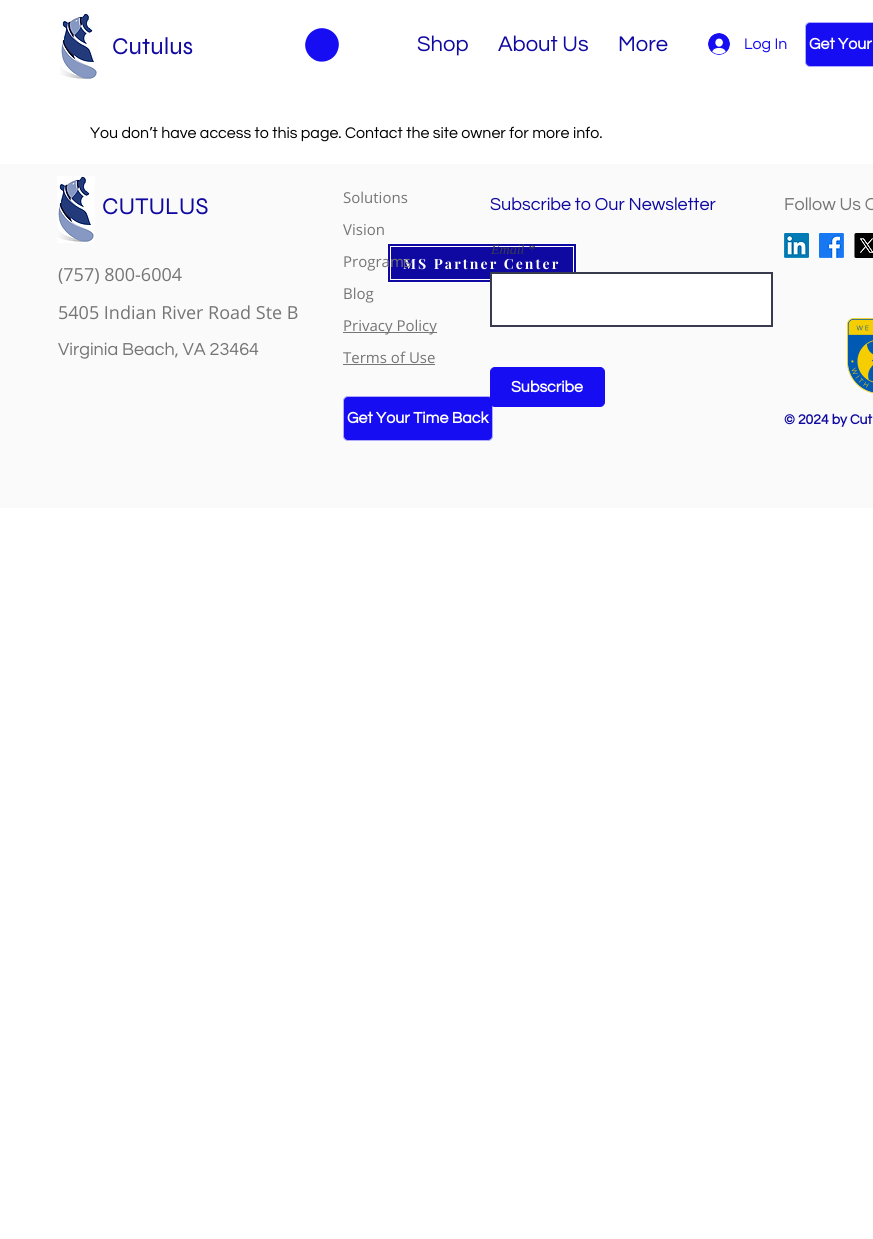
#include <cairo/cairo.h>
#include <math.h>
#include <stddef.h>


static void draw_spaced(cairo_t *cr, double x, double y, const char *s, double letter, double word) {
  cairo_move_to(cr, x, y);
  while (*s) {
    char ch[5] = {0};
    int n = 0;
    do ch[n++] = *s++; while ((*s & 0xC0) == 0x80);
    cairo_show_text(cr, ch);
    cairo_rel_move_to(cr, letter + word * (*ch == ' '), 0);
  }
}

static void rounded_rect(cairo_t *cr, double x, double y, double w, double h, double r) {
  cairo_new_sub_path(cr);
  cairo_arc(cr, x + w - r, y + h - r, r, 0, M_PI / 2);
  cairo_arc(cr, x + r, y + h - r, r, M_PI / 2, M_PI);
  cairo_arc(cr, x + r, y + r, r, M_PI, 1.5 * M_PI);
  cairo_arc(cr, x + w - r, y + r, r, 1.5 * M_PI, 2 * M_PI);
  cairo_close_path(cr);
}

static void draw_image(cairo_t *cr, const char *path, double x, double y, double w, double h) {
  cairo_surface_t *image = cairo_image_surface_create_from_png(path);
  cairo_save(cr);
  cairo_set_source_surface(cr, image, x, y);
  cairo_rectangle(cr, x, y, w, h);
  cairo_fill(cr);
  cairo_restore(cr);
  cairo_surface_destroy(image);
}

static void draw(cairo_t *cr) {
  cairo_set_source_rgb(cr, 1, 1, 1);
  cairo_paint(cr);
  draw_image(cr, "images/1.png", 60, 13, 37, 66);
  cairo_set_source_rgb(cr, 23 / 255.0, 13 / 255.0, 242 / 255.0);
  cairo_new_path(cr);
  cairo_move_to(cr, 327, 29);
  cairo_curve_to(cr, 335.5, 31.5, 341, 40.5, 338, 49.5);
  cairo_curve_to(cr, 335.5, 58.5, 326, 63.5, 317, 61);
  cairo_curve_to(cr, 308.5, 58, 303, 49, 306, 40);
  cairo_curve_to(cr, 308.5, 31.5, 318, 26, 327, 29);
  cairo_close_path(cr);
  cairo_fill(cr);
  draw_image(cr, "images/2.png", 708, 33, 22, 22);
  rounded_rect(cr, 805.5, 22.5, 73, 44, 4.5);
  cairo_fill_preserve(cr);
  cairo_set_source_rgb(cr, 175 / 255.0, 172 / 255.0, 251 / 255.0);
  cairo_set_line_width(cr, 1);
  cairo_stroke(cr);
  cairo_set_source_rgb(cr, 250 / 255.0, 250 / 255.0, 250 / 255.0);
  cairo_rectangle(cr, 0, 164, 873, 344);
  cairo_fill(cr);
  cairo_set_source_rgb(cr, 117 / 255.0, 117 / 255.0, 117 / 255.0);
  cairo_rectangle(cr, 343, 332, 94, 1);
  cairo_fill(cr);
  cairo_rectangle(cr, 343, 364, 92, 1);
  cairo_fill(cr);
  cairo_set_source_rgb(cr, 23 / 255.0, 13 / 255.0, 242 / 255.0);
  rounded_rect(cr, 343.5, 396.5, 149, 44, 4.5);
  cairo_fill_preserve(cr);
  cairo_set_source_rgb(cr, 175 / 255.0, 172 / 255.0, 251 / 255.0);
  cairo_stroke(cr);
  cairo_set_source_rgb(cr, 15 / 255.0, 9 / 255.0, 161 / 255.0);
  cairo_rectangle(cr, 387.5, 243.5, 189, 39);
  cairo_fill_preserve(cr);
  cairo_set_source_rgb(cr, 1, 1, 1);
  cairo_stroke(cr);
  cairo_rectangle(cr, 390.5, 246.5, 183, 33);
  cairo_stroke(cr);
  cairo_rectangle(cr, 491, 273, 281, 53);
  cairo_fill_preserve(cr);
  cairo_set_source_rgb(cr, 55 / 255.0, 59 / 255.0, 77 / 255.0);
  cairo_set_line_width(cr, 2);
  cairo_stroke(cr);
  cairo_set_source_rgb(cr, 23 / 255.0, 13 / 255.0, 242 / 255.0);
  rounded_rect(cr, 490.5, 367.5, 114, 39, 4.5);
  cairo_fill_preserve(cr);
  cairo_set_line_width(cr, 1);
  cairo_stroke(cr);
  draw_image(cr, "images/3.png", 784, 233, 25, 25);
  draw_image(cr, "images/4.png", 819, 233, 25, 25);
  draw_image(cr, "images/5.png", 854, 233, 19, 25);
  draw_image(cr, "images/6.png", 847, 318, 26, 76);
  draw_image(cr, "images/7.png", 57, 176, 38, 67);
  cairo_select_font_face(cr, "Syne", CAIRO_FONT_SLANT_NORMAL, CAIRO_FONT_WEIGHT_NORMAL);
  cairo_set_font_size(cr, 24);
  cairo_set_source_rgb(cr, 15 / 255.0, 9 / 255.0, 161 / 255.0);
  cairo_move_to(cr, 112, 54);
  cairo_show_text(cr, "Cutulus");
  cairo_select_font_face(cr, "Questrial", CAIRO_FONT_SLANT_NORMAL, CAIRO_FONT_WEIGHT_NORMAL);
  cairo_set_font_size(cr, 22);
  cairo_move_to(cr, 417, 51);
  cairo_show_text(cr, "Shop");
  cairo_move_to(cr, 498, 51);
  cairo_show_text(cr, "About Us");
  cairo_move_to(cr, 618, 51);
  cairo_show_text(cr, "More");
  cairo_set_font_size(cr, 16);
  cairo_set_source_rgb(cr, 23 / 255.0, 13 / 255.0, 242 / 255.0);
  cairo_move_to(cr, 744, 49);
  cairo_show_text(cr, "Log In");
  cairo_select_font_face(cr, "Questrial", CAIRO_FONT_SLANT_NORMAL, CAIRO_FONT_WEIGHT_BOLD);
  cairo_set_source_rgb(cr, 1, 1, 1);
  cairo_move_to(cr, 809, 49);
  cairo_show_text(cr, "Get Your");
  cairo_select_font_face(cr, "Questrial", CAIRO_FONT_SLANT_NORMAL, CAIRO_FONT_WEIGHT_NORMAL);
  cairo_set_source_rgb(cr, 0, 0, 0);
  cairo_move_to(cr, 90, 138);
  cairo_show_text(cr, "You don’t have access to this page. Contact the site owner for more info.");
  cairo_select_font_face(cr, "Open Sans", CAIRO_FONT_SLANT_NORMAL, CAIRO_FONT_WEIGHT_NORMAL);
  cairo_set_font_size(cr, 15);
  cairo_set_source_rgb(cr, 117 / 255.0, 117 / 255.0, 117 / 255.0);
  cairo_move_to(cr, 343, 203);
  cairo_show_text(cr, "Solutions");
  cairo_move_to(cr, 343, 235);
  cairo_show_text(cr, "Vision");
  cairo_move_to(cr, 343, 299);
  cairo_show_text(cr, "Blog");
  cairo_move_to(cr, 343, 331);
  cairo_show_text(cr, "Privacy Policy");
  cairo_move_to(cr, 343, 363);
  cairo_show_text(cr, "Terms of Use");
  cairo_select_font_face(cr, "Questrial", CAIRO_FONT_SLANT_NORMAL, CAIRO_FONT_WEIGHT_BOLD);
  cairo_set_font_size(cr, 16);
  cairo_set_source_rgb(cr, 1, 1, 1);
  cairo_move_to(cr, 347, 423);
  cairo_show_text(cr, "Get Your Time Back");
  cairo_select_font_face(cr, "Questrial", CAIRO_FONT_SLANT_NORMAL, CAIRO_FONT_WEIGHT_NORMAL);
  cairo_set_font_size(cr, 18);
  cairo_set_source_rgb(cr, 15 / 255.0, 9 / 255.0, 161 / 255.0);
  cairo_move_to(cr, 490, 210);
  cairo_show_text(cr, "Subscribe to Our Newsletter");
  cairo_select_font_face(cr, "Liberation Serif", CAIRO_FONT_SLANT_ITALIC, CAIRO_FONT_WEIGHT_NORMAL);
  cairo_set_font_size(cr, 14);
  cairo_set_source_rgb(cr, 55 / 255.0, 59 / 255.0, 77 / 255.0);
  cairo_move_to(cr, 491, 254);
  cairo_show_text(cr, "Email *");
  cairo_select_font_face(cr, "Questrial", CAIRO_FONT_SLANT_NORMAL, CAIRO_FONT_WEIGHT_BOLD);
  cairo_set_font_size(cr, 16);
  cairo_set_source_rgb(cr, 1, 1, 1);
  cairo_move_to(cr, 511, 392);
  cairo_show_text(cr, "Subscribe");
  cairo_select_font_face(cr, "Questrial", CAIRO_FONT_SLANT_NORMAL, CAIRO_FONT_WEIGHT_NORMAL);
  cairo_set_font_size(cr, 18);
  cairo_set_source_rgb(cr, 117 / 255.0, 117 / 255.0, 117 / 255.0);
  cairo_move_to(cr, 784, 210);
  cairo_show_text(cr, "Follow Us O");
  cairo_select_font_face(cr, "Questrial", CAIRO_FONT_SLANT_NORMAL, CAIRO_FONT_WEIGHT_BOLD);
  cairo_set_font_size(cr, 14);
  cairo_set_source_rgb(cr, 15 / 255.0, 9 / 255.0, 161 / 255.0);
  cairo_move_to(cr, 784, 424);
  cairo_show_text(cr, "© 2024 by Cut");
  cairo_select_font_face(cr, "Syne", CAIRO_FONT_SLANT_NORMAL, CAIRO_FONT_WEIGHT_NORMAL);
  cairo_set_font_size(cr, 24);
  cairo_move_to(cr, 102, 214);
  cairo_show_text(cr, "CUTULUS");
  cairo_select_font_face(cr, "Playfair Display", CAIRO_FONT_SLANT_NORMAL, CAIRO_FONT_WEIGHT_BOLD);
  cairo_set_font_size(cr, 14);
  cairo_set_source_rgb(cr, 1, 1, 1);
  draw_spaced(cr, 403, 269, "MS Partner Center", 2.1, 0);
  cairo_select_font_face(cr, "Open Sans", CAIRO_FONT_SLANT_NORMAL, CAIRO_FONT_WEIGHT_NORMAL);
  cairo_set_font_size(cr, 15);
  cairo_set_source_rgb(cr, 117 / 255.0, 117 / 255.0, 117 / 255.0);
  cairo_move_to(cr, 343, 267);
  cairo_show_text(cr, "Programs");
  cairo_set_font_size(cr, 18);
  cairo_move_to(cr, 58, 281);
  cairo_show_text(cr, "(757) 800-6004");
  cairo_move_to(cr, 58, 319);
  cairo_show_text(cr, "5405 Indian River Road Ste B");
  cairo_select_font_face(cr, "Questrial", CAIRO_FONT_SLANT_NORMAL, CAIRO_FONT_WEIGHT_NORMAL);
  cairo_move_to(cr, 58, 355);
  cairo_show_text(cr, "Virginia Beach, VA 23464");
}

int main(void) {
  cairo_surface_t *surface = cairo_image_surface_create(CAIRO_FORMAT_RGB24, 873, 1239);
  cairo_t *cr = cairo_create(surface);
  cairo_font_options_t *options = cairo_font_options_create();
  cairo_font_options_set_hint_metrics(options, CAIRO_HINT_METRICS_OFF);
  cairo_font_options_set_hint_style(options, CAIRO_HINT_STYLE_NONE);
  cairo_set_font_options(cr, options);
  cairo_set_miter_limit(cr, 4);
  draw(cr);
  cairo_surface_write_to_png(surface, "out.png");
  cairo_font_options_destroy(options);
  cairo_destroy(cr);
  cairo_surface_destroy(surface);
  return 0;
}
